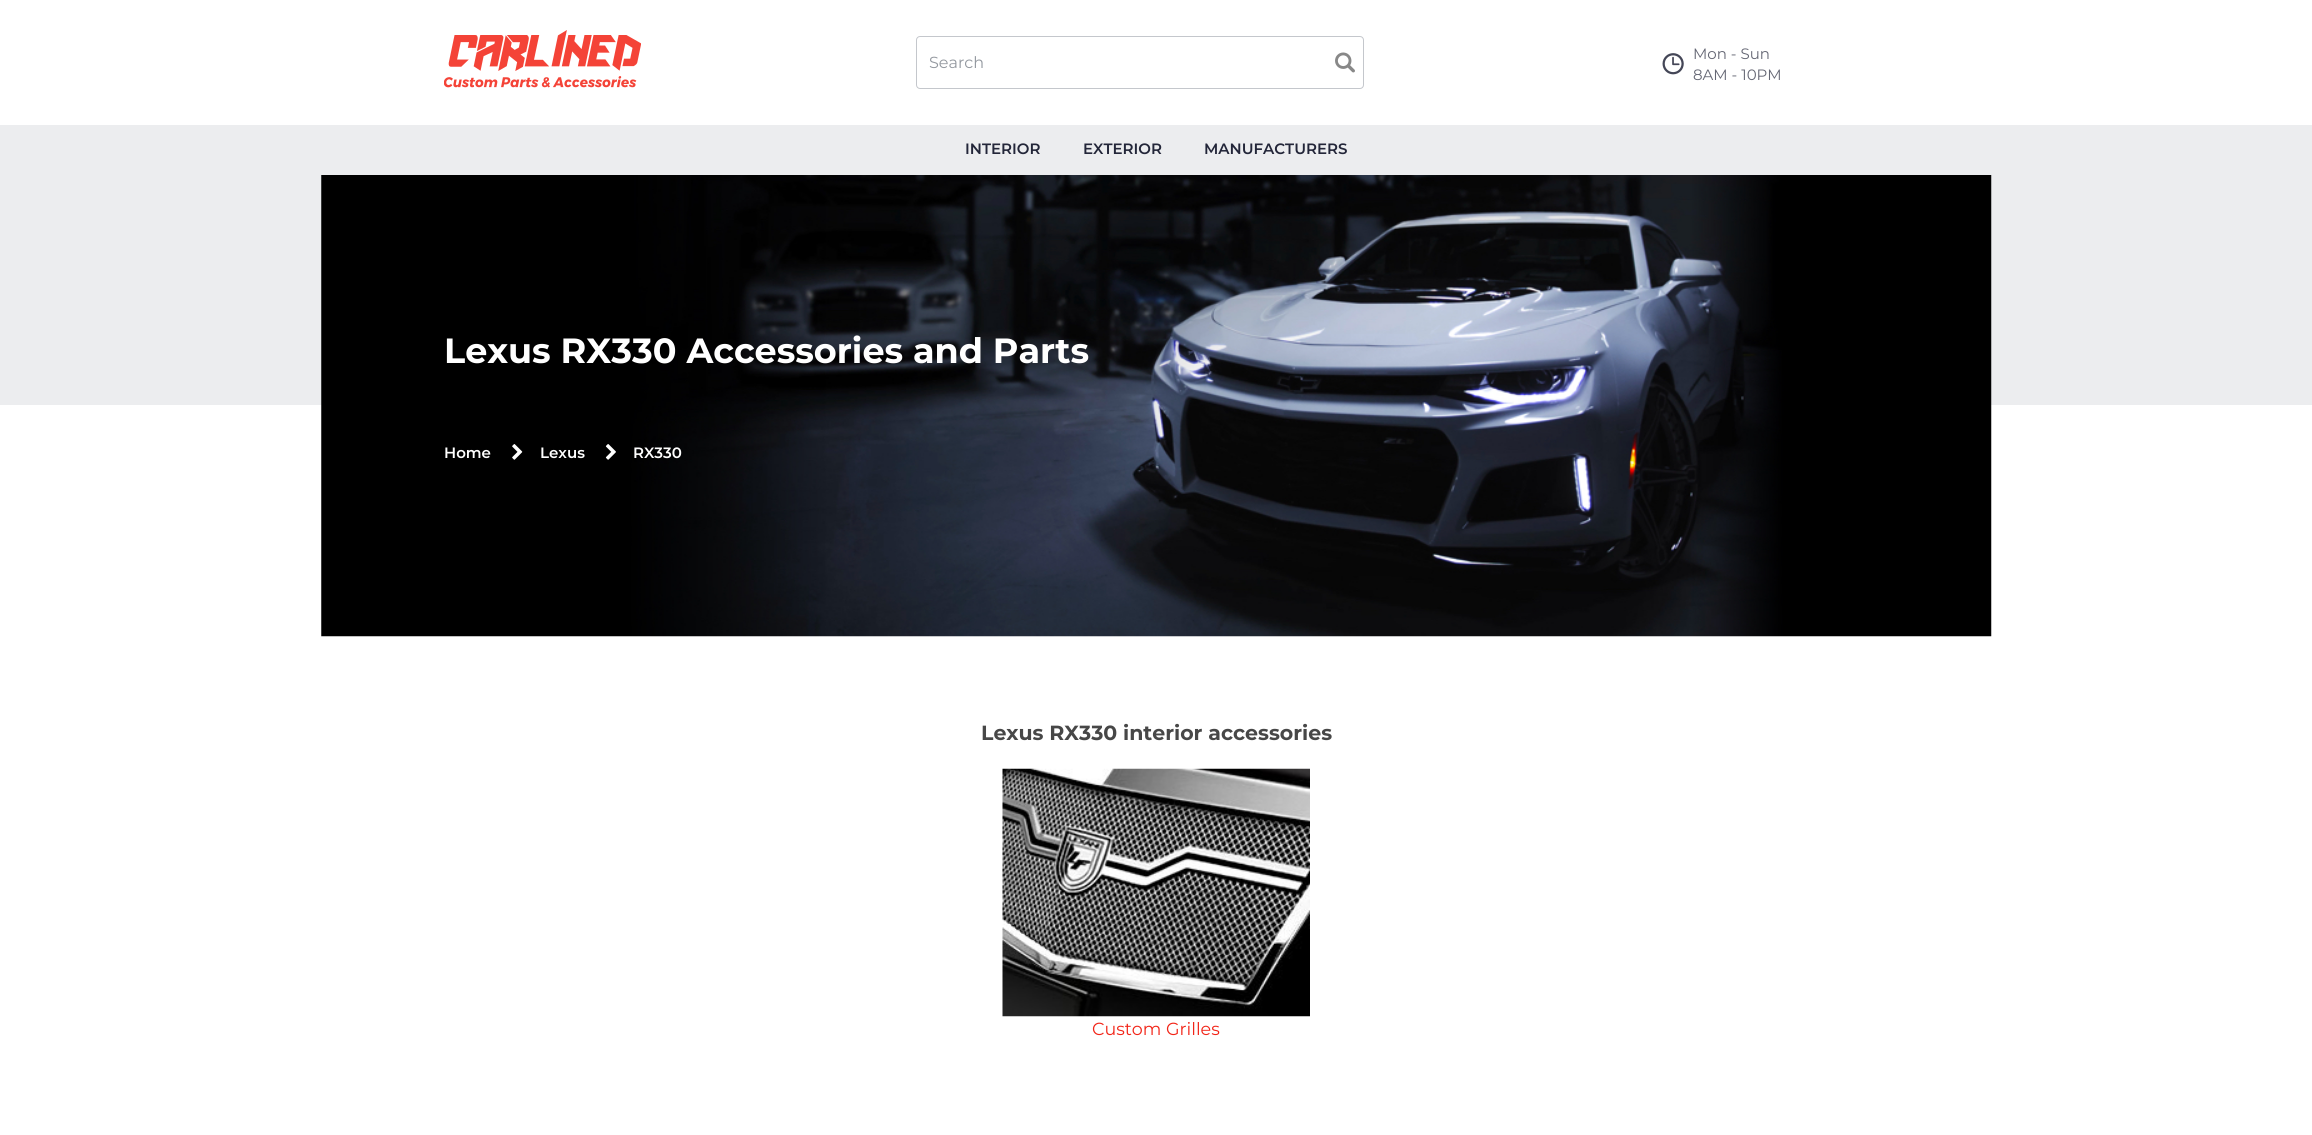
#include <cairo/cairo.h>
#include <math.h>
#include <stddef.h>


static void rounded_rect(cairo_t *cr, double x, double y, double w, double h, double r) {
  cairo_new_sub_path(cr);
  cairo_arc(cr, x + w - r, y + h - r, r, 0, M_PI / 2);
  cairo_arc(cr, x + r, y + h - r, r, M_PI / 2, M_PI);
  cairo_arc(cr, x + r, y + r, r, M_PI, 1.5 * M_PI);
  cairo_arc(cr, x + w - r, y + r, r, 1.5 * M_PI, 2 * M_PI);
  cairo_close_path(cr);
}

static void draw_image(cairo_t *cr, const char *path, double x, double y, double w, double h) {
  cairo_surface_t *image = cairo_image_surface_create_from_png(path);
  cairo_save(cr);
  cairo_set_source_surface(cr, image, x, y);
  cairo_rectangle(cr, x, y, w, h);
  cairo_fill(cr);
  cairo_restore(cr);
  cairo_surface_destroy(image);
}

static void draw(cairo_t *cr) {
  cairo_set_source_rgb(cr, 1, 1, 1);
  cairo_paint(cr);
  draw_image(cr, "images/1.png", 444, 30, 197, 58);
  rounded_rect(cr, 916.5, 36.5, 447, 52, 3.5);
  cairo_set_source_rgb(cr, 196 / 255.0, 199 / 255.0, 204 / 255.0);
  cairo_set_line_width(cr, 1);
  cairo_stroke(cr);
  draw_image(cr, "images/2.png", 1335, 52, 20, 21);
  draw_image(cr, "images/3.png", 1662, 53, 22, 22);
  cairo_set_source_rgb(cr, 236 / 255.0, 237 / 255.0, 239 / 255.0);
  cairo_rectangle(cr, 0, 125, 2312, 280);
  cairo_fill(cr);
  draw_image(cr, "images/4.png", 321, 175, 1671, 462);
  draw_image(cr, "images/5.png", 512, 444, 11, 16);
  draw_image(cr, "images/6.png", 605, 444, 11, 16);
  draw_image(cr, "images/7.png", 1002, 768, 308, 249);
  cairo_select_font_face(cr, "Montserrat", CAIRO_FONT_SLANT_NORMAL, CAIRO_FONT_WEIGHT_NORMAL);
  cairo_set_font_size(cr, 16);
  cairo_set_source_rgb(cr, 147 / 255.0, 152 / 255.0, 159 / 255.0);
  cairo_move_to(cr, 929, 68);
  cairo_show_text(cr, "Search");
  cairo_set_font_size(cr, 15);
  cairo_set_source_rgb(cr, 101 / 255.0, 103 / 255.0, 116 / 255.0);
  cairo_move_to(cr, 1693, 59);
  cairo_show_text(cr, "Mon - Sun");
  cairo_move_to(cr, 1693, 80);
  cairo_show_text(cr, "8AM - 10PM");
  cairo_select_font_face(cr, "Montserrat SemiBold", CAIRO_FONT_SLANT_NORMAL, CAIRO_FONT_WEIGHT_NORMAL);
  cairo_set_source_rgb(cr, 35 / 255.0, 38 / 255.0, 57 / 255.0);
  cairo_move_to(cr, 965, 154);
  cairo_show_text(cr, "INTERIOR");
  cairo_move_to(cr, 1083, 154);
  cairo_show_text(cr, "EXTERIOR");
  cairo_move_to(cr, 1204, 154);
  cairo_show_text(cr, "MANUFACTURERS");
  cairo_select_font_face(cr, "Montserrat", CAIRO_FONT_SLANT_NORMAL, CAIRO_FONT_WEIGHT_BOLD);
  cairo_set_font_size(cr, 35);
  cairo_set_source_rgb(cr, 1, 1, 1);
  cairo_move_to(cr, 444, 363);
  cairo_show_text(cr, "Lexus RX330 Accessories and Parts");
  cairo_select_font_face(cr, "Montserrat SemiBold", CAIRO_FONT_SLANT_NORMAL, CAIRO_FONT_WEIGHT_NORMAL);
  cairo_set_font_size(cr, 15);
  cairo_move_to(cr, 444, 458);
  cairo_show_text(cr, "Home");
  cairo_move_to(cr, 540, 458);
  cairo_show_text(cr, "Lexus");
  cairo_move_to(cr, 633, 458);
  cairo_show_text(cr, "RX330");
  cairo_select_font_face(cr, "Montserrat", CAIRO_FONT_SLANT_NORMAL, CAIRO_FONT_WEIGHT_BOLD);
  cairo_set_font_size(cr, 20.5);
  cairo_set_source_rgb(cr, 71 / 255.0, 71 / 255.0, 71 / 255.0);
  cairo_move_to(cr, 981, 740);
  cairo_show_text(cr, "Lexus RX330 interior accessories");
  cairo_select_font_face(cr, "Montserrat", CAIRO_FONT_SLANT_NORMAL, CAIRO_FONT_WEIGHT_NORMAL);
  cairo_set_font_size(cr, 17.5);
  cairo_set_source_rgb(cr, 242 / 255.0, 37 / 255.0, 24 / 255.0);
  cairo_move_to(cr, 1092, 1035);
  cairo_show_text(cr, "Custom Grilles");
}

int main(void) {
  cairo_surface_t *surface = cairo_image_surface_create(CAIRO_FORMAT_RGB24, 2312, 1135);
  cairo_t *cr = cairo_create(surface);
  cairo_font_options_t *options = cairo_font_options_create();
  cairo_font_options_set_hint_metrics(options, CAIRO_HINT_METRICS_OFF);
  cairo_font_options_set_hint_style(options, CAIRO_HINT_STYLE_NONE);
  cairo_set_font_options(cr, options);
  cairo_set_miter_limit(cr, 4);
  draw(cr);
  cairo_surface_write_to_png(surface, "out.png");
  cairo_font_options_destroy(options);
  cairo_destroy(cr);
  cairo_surface_destroy(surface);
  return 0;
}
